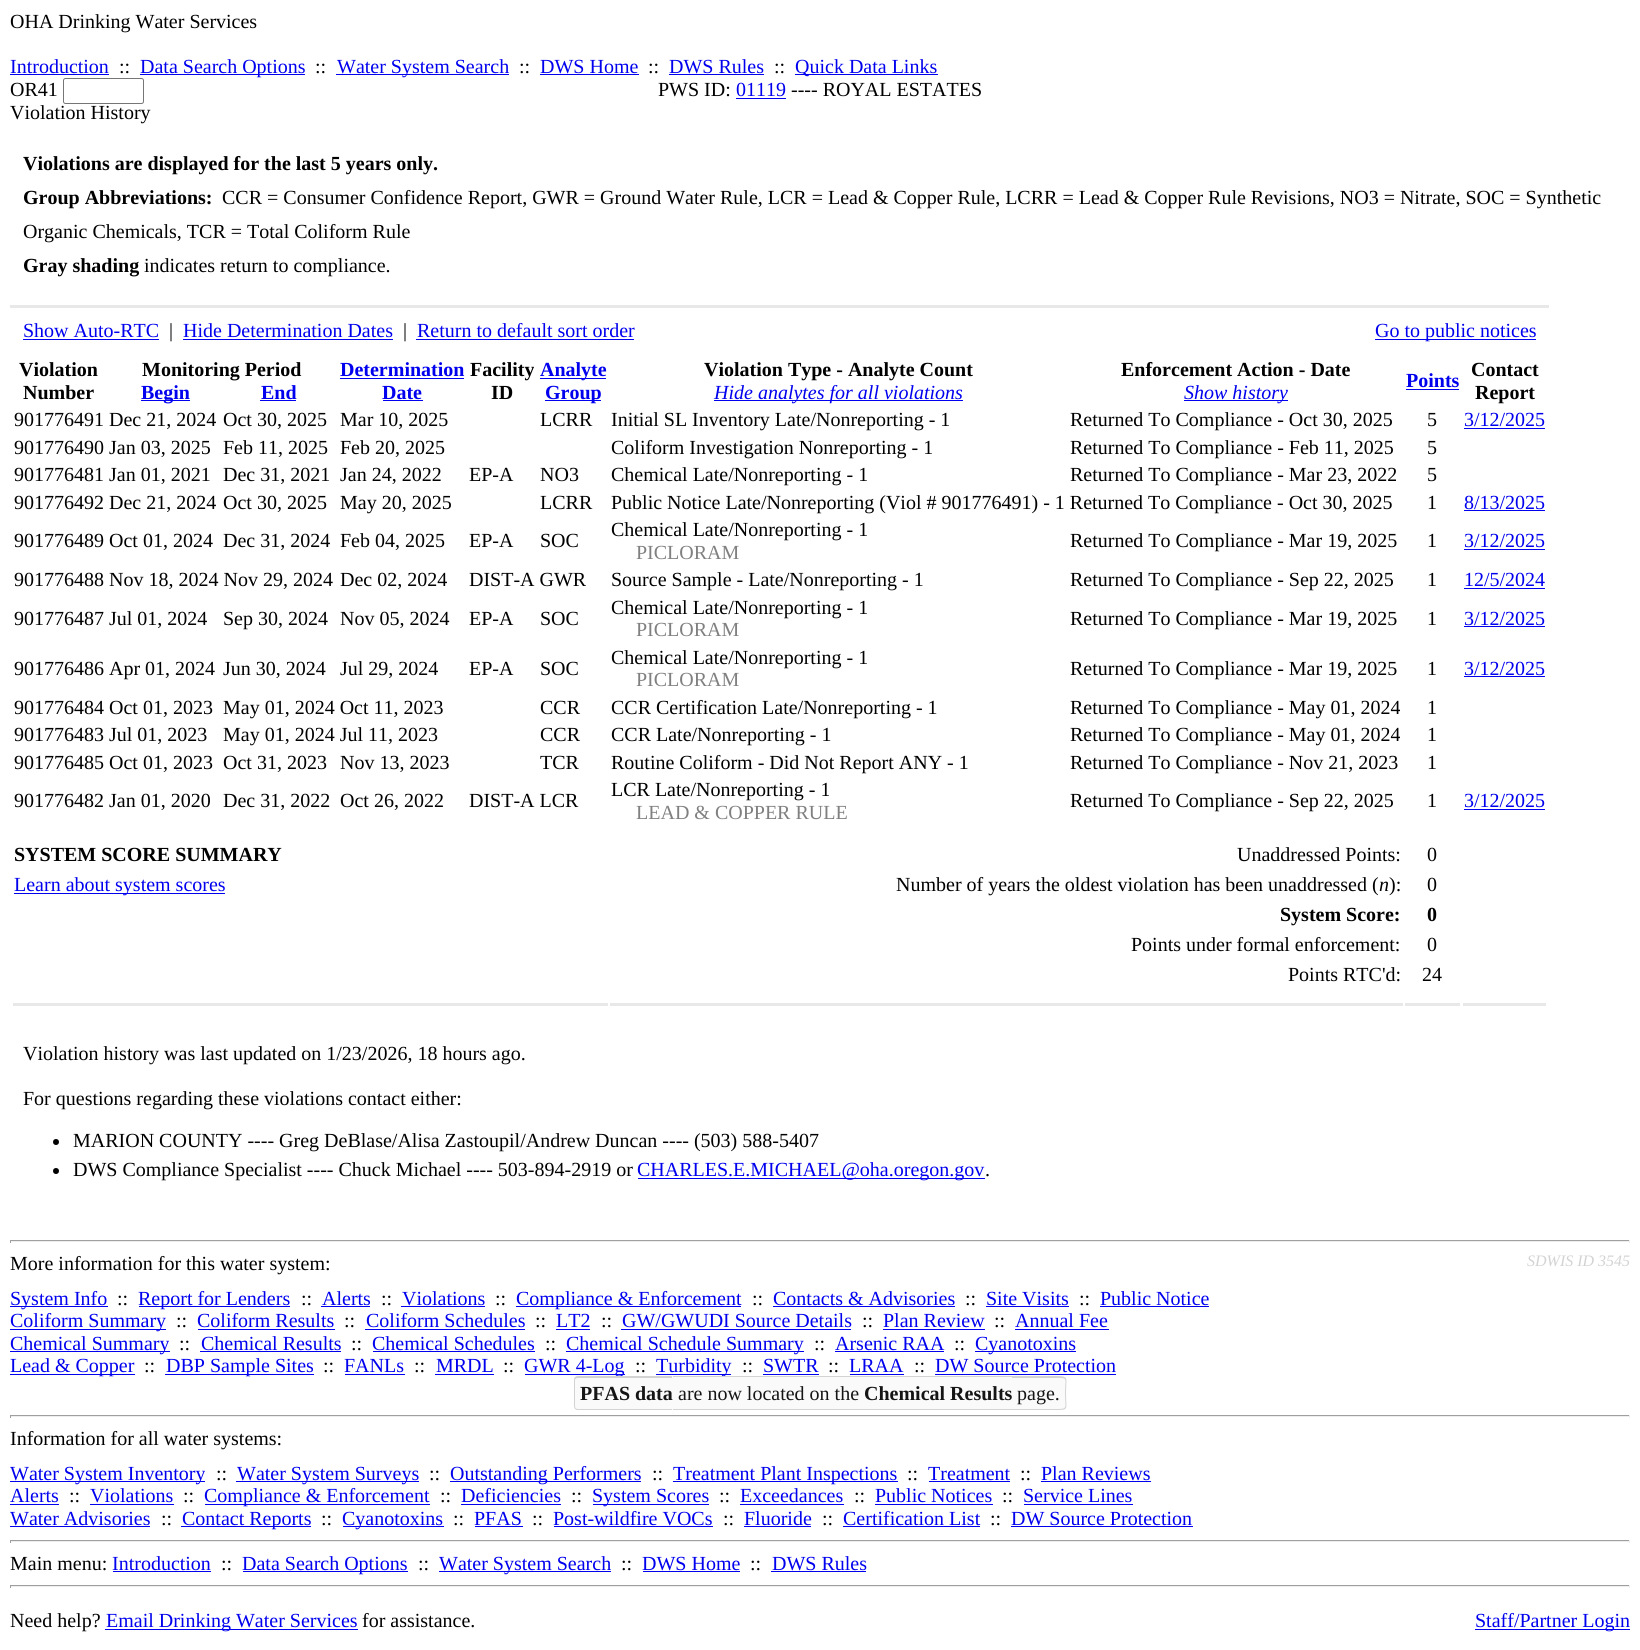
#include <cairo/cairo.h>
#include <math.h>
#include <stddef.h>


static void rounded_rect(cairo_t *cr, double x, double y, double w, double h, double r) {
  cairo_new_sub_path(cr);
  cairo_arc(cr, x + w - r, y + h - r, r, 0, M_PI / 2);
  cairo_arc(cr, x + r, y + h - r, r, M_PI / 2, M_PI);
  cairo_arc(cr, x + r, y + r, r, M_PI, 1.5 * M_PI);
  cairo_arc(cr, x + w - r, y + r, r, 1.5 * M_PI, 2 * M_PI);
  cairo_close_path(cr);
}

static void draw(cairo_t *cr) {
  cairo_set_source_rgb(cr, 1, 1, 1);
  cairo_paint(cr);
  cairo_set_source_rgb(cr, 0, 0, 238 / 255.0);
  cairo_rectangle(cr, 10, 74, 99, 1);
  cairo_fill(cr);
  cairo_rectangle(cr, 140, 74, 165, 1);
  cairo_fill(cr);
  cairo_rectangle(cr, 336, 74, 173, 1);
  cairo_fill(cr);
  cairo_rectangle(cr, 540, 74, 99, 1);
  cairo_fill(cr);
  cairo_rectangle(cr, 669, 74, 95, 1);
  cairo_fill(cr);
  cairo_rectangle(cr, 795, 74, 143, 1);
  cairo_fill(cr);
  rounded_rect(cr, 63.5, 78.5, 80, 25, 2);
  cairo_set_source_rgb(cr, 118 / 255.0, 118 / 255.0, 118 / 255.0);
  cairo_set_line_width(cr, 1);
  cairo_stroke(cr);
  cairo_set_source_rgb(cr, 0, 0, 238 / 255.0);
  cairo_rectangle(cr, 736, 98, 50, 1);
  cairo_fill(cr);
  cairo_set_source_rgb(cr, 232 / 255.0, 232 / 255.0, 232 / 255.0);
  cairo_rectangle(cr, 10, 305, 1539, 3);
  cairo_fill(cr);
  cairo_set_source_rgb(cr, 0, 0, 238 / 255.0);
  cairo_rectangle(cr, 23, 339, 136, 1);
  cairo_fill(cr);
  cairo_rectangle(cr, 183, 339, 210, 1);
  cairo_fill(cr);
  cairo_rectangle(cr, 416, 339, 218, 1);
  cairo_fill(cr);
  cairo_rectangle(cr, 1375, 339, 161, 1);
  cairo_fill(cr);
  cairo_rectangle(cr, 141, 400, 49, 1);
  cairo_fill(cr);
  cairo_rectangle(cr, 260, 400, 36, 1);
  cairo_fill(cr);
  cairo_rectangle(cr, 340, 378, 124, 1);
  cairo_fill(cr);
  cairo_rectangle(cr, 383, 400, 40, 1);
  cairo_fill(cr);
  cairo_rectangle(cr, 540, 378, 66, 1);
  cairo_fill(cr);
  cairo_rectangle(cr, 545, 400, 56, 1);
  cairo_fill(cr);
  cairo_rectangle(cr, 714, 400, 249, 1);
  cairo_fill(cr);
  cairo_rectangle(cr, 1184, 400, 104, 1);
  cairo_fill(cr);
  cairo_rectangle(cr, 1406, 389, 53, 1);
  cairo_fill(cr);
  cairo_rectangle(cr, 1464, 428, 81, 1);
  cairo_fill(cr);
  cairo_rectangle(cr, 1464, 510, 81, 1);
  cairo_fill(cr);
  cairo_rectangle(cr, 1464, 549, 81, 1);
  cairo_fill(cr);
  cairo_rectangle(cr, 1464, 588, 81, 1);
  cairo_fill(cr);
  cairo_rectangle(cr, 1464, 626, 81, 1);
  cairo_fill(cr);
  cairo_rectangle(cr, 1464, 676, 81, 1);
  cairo_fill(cr);
  cairo_rectangle(cr, 1464, 809, 81, 1);
  cairo_fill(cr);
  cairo_set_source_rgb(cr, 232 / 255.0, 232 / 255.0, 232 / 255.0);
  cairo_rectangle(cr, 13, 1003, 595, 3);
  cairo_fill(cr);
  cairo_set_source_rgb(cr, 0, 0, 238 / 255.0);
  cairo_rectangle(cr, 14, 893, 211, 1);
  cairo_fill(cr);
  cairo_set_source_rgb(cr, 232 / 255.0, 232 / 255.0, 232 / 255.0);
  cairo_rectangle(cr, 610, 1003, 793, 3);
  cairo_fill(cr);
  cairo_rectangle(cr, 1405, 1003, 55, 3);
  cairo_fill(cr);
  cairo_rectangle(cr, 1463, 1003, 83, 3);
  cairo_fill(cr);
  cairo_set_source_rgb(cr, 0, 0, 0);
  cairo_arc(cr, 56, 1142, 3, 0, 2 * M_PI);
  cairo_fill(cr);
  cairo_arc(cr, 56, 1171, 3, 0, 2 * M_PI);
  cairo_fill(cr);
  cairo_set_source_rgb(cr, 0, 0, 238 / 255.0);
  cairo_rectangle(cr, 638, 1178, 347, 1);
  cairo_fill(cr);
  cairo_set_source_rgb(cr, 159 / 255.0, 159 / 255.0, 159 / 255.0);
  cairo_rectangle(cr, 10, 1240, 1620, 1);
  cairo_fill(cr);
  cairo_set_source_rgb(cr, 238 / 255.0, 238 / 255.0, 238 / 255.0);
  cairo_rectangle(cr, 1629, 1240, 1, 3);
  cairo_fill(cr);
  cairo_rectangle(cr, 10, 1241, 1620, 1);
  cairo_fill(cr);
  cairo_set_source_rgb(cr, 159 / 255.0, 159 / 255.0, 159 / 255.0);
  cairo_rectangle(cr, 10, 1240, 1, 3);
  cairo_fill(cr);
  cairo_set_source_rgb(cr, 0, 0, 238 / 255.0);
  cairo_rectangle(cr, 10, 1306, 98, 1);
  cairo_fill(cr);
  cairo_rectangle(cr, 139, 1306, 151, 1);
  cairo_fill(cr);
  cairo_rectangle(cr, 321, 1306, 49, 1);
  cairo_fill(cr);
  cairo_rectangle(cr, 401, 1306, 84, 1);
  cairo_fill(cr);
  cairo_rectangle(cr, 516, 1306, 225, 1);
  cairo_fill(cr);
  cairo_rectangle(cr, 773, 1306, 182, 1);
  cairo_fill(cr);
  cairo_rectangle(cr, 986, 1306, 83, 1);
  cairo_fill(cr);
  cairo_rectangle(cr, 1100, 1306, 109, 1);
  cairo_fill(cr);
  cairo_rectangle(cr, 10, 1329, 156, 1);
  cairo_fill(cr);
  cairo_rectangle(cr, 198, 1329, 137, 1);
  cairo_fill(cr);
  cairo_rectangle(cr, 365, 1329, 160, 1);
  cairo_fill(cr);
  cairo_rectangle(cr, 556, 1329, 34, 1);
  cairo_fill(cr);
  cairo_rectangle(cr, 621, 1329, 230, 1);
  cairo_fill(cr);
  cairo_rectangle(cr, 883, 1329, 102, 1);
  cairo_fill(cr);
  cairo_rectangle(cr, 1015, 1329, 94, 1);
  cairo_fill(cr);
  cairo_rectangle(cr, 10, 1351, 160, 1);
  cairo_fill(cr);
  cairo_rectangle(cr, 200, 1351, 141, 1);
  cairo_fill(cr);
  cairo_rectangle(cr, 373, 1351, 162, 1);
  cairo_fill(cr);
  cairo_rectangle(cr, 566, 1351, 238, 1);
  cairo_fill(cr);
  cairo_rectangle(cr, 835, 1351, 109, 1);
  cairo_fill(cr);
  cairo_rectangle(cr, 975, 1351, 101, 1);
  cairo_fill(cr);
  cairo_rectangle(cr, 10, 1374, 125, 1);
  cairo_fill(cr);
  cairo_rectangle(cr, 165, 1374, 149, 1);
  cairo_fill(cr);
  cairo_rectangle(cr, 345, 1374, 60, 1);
  cairo_fill(cr);
  cairo_rectangle(cr, 435, 1374, 59, 1);
  cairo_fill(cr);
  cairo_rectangle(cr, 525, 1374, 100, 1);
  cairo_fill(cr);
  cairo_rectangle(cr, 656, 1374, 75, 1);
  cairo_fill(cr);
  cairo_rectangle(cr, 763, 1374, 56, 1);
  cairo_fill(cr);
  cairo_rectangle(cr, 850, 1374, 54, 1);
  cairo_fill(cr);
  cairo_rectangle(cr, 935, 1374, 181, 1);
  cairo_fill(cr);
  cairo_set_source_rgb(cr, 250 / 255.0, 250 / 255.0, 250 / 255.0);
  cairo_rectangle(cr, 673, 1377, 340, 32);
  cairo_fill(cr);
  cairo_new_path(cr);
  cairo_move_to(cr, 1013, 1376);
  cairo_line_to(cr, 1062, 1376);
  cairo_curve_to(cr, 1064, 1376, 1066, 1378, 1066, 1380);
  cairo_line_to(cr, 1066, 1406);
  cairo_curve_to(cr, 1066, 1408, 1064, 1410, 1062, 1410);
  cairo_line_to(cr, 1013, 1410);
  cairo_close_path(cr);
  cairo_fill(cr);
  cairo_set_source_rgb(cr, 211 / 255.0, 211 / 255.0, 211 / 255.0);
  cairo_rectangle(cr, 673, 1409, 340, 1);
  cairo_fill(cr);
  cairo_set_source_rgb(cr, 159 / 255.0, 159 / 255.0, 159 / 255.0);
  cairo_rectangle(cr, 10, 1415, 1620, 1);
  cairo_fill(cr);
  cairo_set_source_rgb(cr, 238 / 255.0, 238 / 255.0, 238 / 255.0);
  cairo_rectangle(cr, 1629, 1415, 1, 3);
  cairo_fill(cr);
  cairo_rectangle(cr, 10, 1416, 1620, 1);
  cairo_fill(cr);
  cairo_set_source_rgb(cr, 159 / 255.0, 159 / 255.0, 159 / 255.0);
  cairo_rectangle(cr, 10, 1415, 1, 3);
  cairo_fill(cr);
  cairo_set_source_rgb(cr, 0, 0, 238 / 255.0);
  cairo_rectangle(cr, 10, 1481, 195, 1);
  cairo_fill(cr);
  cairo_rectangle(cr, 236, 1481, 183, 1);
  cairo_fill(cr);
  cairo_rectangle(cr, 450, 1481, 191, 1);
  cairo_fill(cr);
  cairo_rectangle(cr, 673, 1481, 225, 1);
  cairo_fill(cr);
  cairo_rectangle(cr, 929, 1481, 81, 1);
  cairo_fill(cr);
  cairo_rectangle(cr, 1041, 1481, 110, 1);
  cairo_fill(cr);
  cairo_rectangle(cr, 10, 1504, 49, 1);
  cairo_fill(cr);
  cairo_rectangle(cr, 90, 1504, 84, 1);
  cairo_fill(cr);
  cairo_rectangle(cr, 205, 1504, 225, 1);
  cairo_fill(cr);
  cairo_rectangle(cr, 461, 1504, 100, 1);
  cairo_fill(cr);
  cairo_rectangle(cr, 593, 1504, 116, 1);
  cairo_fill(cr);
  cairo_rectangle(cr, 740, 1504, 104, 1);
  cairo_fill(cr);
  cairo_rectangle(cr, 875, 1504, 118, 1);
  cairo_fill(cr);
  cairo_rectangle(cr, 1024, 1504, 109, 1);
  cairo_fill(cr);
  cairo_rectangle(cr, 10, 1526, 140, 1);
  cairo_fill(cr);
  cairo_rectangle(cr, 181, 1526, 130, 1);
  cairo_fill(cr);
  cairo_rectangle(cr, 343, 1526, 101, 1);
  cairo_fill(cr);
  cairo_rectangle(cr, 475, 1526, 48, 1);
  cairo_fill(cr);
  cairo_rectangle(cr, 554, 1526, 159, 1);
  cairo_fill(cr);
  cairo_rectangle(cr, 744, 1526, 67, 1);
  cairo_fill(cr);
  cairo_rectangle(cr, 843, 1526, 137, 1);
  cairo_fill(cr);
  cairo_rectangle(cr, 1011, 1526, 182, 1);
  cairo_fill(cr);
  cairo_set_source_rgb(cr, 159 / 255.0, 159 / 255.0, 159 / 255.0);
  cairo_rectangle(cr, 10, 1540, 1620, 1);
  cairo_fill(cr);
  cairo_set_source_rgb(cr, 238 / 255.0, 238 / 255.0, 238 / 255.0);
  cairo_rectangle(cr, 1629, 1540, 1, 3);
  cairo_fill(cr);
  cairo_rectangle(cr, 10, 1541, 1620, 1);
  cairo_fill(cr);
  cairo_set_source_rgb(cr, 159 / 255.0, 159 / 255.0, 159 / 255.0);
  cairo_rectangle(cr, 10, 1540, 1, 3);
  cairo_fill(cr);
  cairo_set_source_rgb(cr, 0, 0, 238 / 255.0);
  cairo_rectangle(cr, 113, 1571, 98, 1);
  cairo_fill(cr);
  cairo_rectangle(cr, 243, 1571, 165, 1);
  cairo_fill(cr);
  cairo_rectangle(cr, 439, 1571, 172, 1);
  cairo_fill(cr);
  cairo_rectangle(cr, 643, 1571, 97, 1);
  cairo_fill(cr);
  cairo_rectangle(cr, 771, 1571, 95, 1);
  cairo_fill(cr);
  cairo_set_source_rgb(cr, 159 / 255.0, 159 / 255.0, 159 / 255.0);
  cairo_rectangle(cr, 10, 1585, 1620, 1);
  cairo_fill(cr);
  cairo_set_source_rgb(cr, 238 / 255.0, 238 / 255.0, 238 / 255.0);
  cairo_rectangle(cr, 1629, 1585, 1, 3);
  cairo_fill(cr);
  cairo_rectangle(cr, 10, 1586, 1620, 1);
  cairo_fill(cr);
  cairo_set_source_rgb(cr, 159 / 255.0, 159 / 255.0, 159 / 255.0);
  cairo_rectangle(cr, 10, 1585, 1, 3);
  cairo_fill(cr);
  cairo_set_source_rgb(cr, 0, 0, 238 / 255.0);
  cairo_rectangle(cr, 105, 1629, 253, 1);
  cairo_fill(cr);
  cairo_rectangle(cr, 1475, 1629, 155, 1);
  cairo_fill(cr);
  cairo_select_font_face(cr, "Liberation Serif", CAIRO_FONT_SLANT_NORMAL, CAIRO_FONT_WEIGHT_NORMAL);
  cairo_set_font_size(cr, 20);
  cairo_set_source_rgb(cr, 0, 0, 0);
  cairo_move_to(cr, 10, 28);
  cairo_show_text(cr, "OHA Drinking Water Services");
  cairo_set_source_rgb(cr, 0, 0, 238 / 255.0);
  cairo_move_to(cr, 10, 73);
  cairo_show_text(cr, "Introduction");
  cairo_set_source_rgb(cr, 0, 0, 0);
  cairo_move_to(cr, 119, 73);
  cairo_show_text(cr, "::");
  cairo_set_source_rgb(cr, 0, 0, 238 / 255.0);
  cairo_move_to(cr, 140, 73);
  cairo_show_text(cr, "Data Search Options");
  cairo_set_source_rgb(cr, 0, 0, 0);
  cairo_move_to(cr, 315, 73);
  cairo_show_text(cr, "::");
  cairo_set_source_rgb(cr, 0, 0, 238 / 255.0);
  cairo_move_to(cr, 337, 73);
  cairo_show_text(cr, "Water System Search");
  cairo_set_source_rgb(cr, 0, 0, 0);
  cairo_move_to(cr, 519, 73);
  cairo_show_text(cr, "::");
  cairo_set_source_rgb(cr, 0, 0, 238 / 255.0);
  cairo_move_to(cr, 540, 73);
  cairo_show_text(cr, "DWS Home");
  cairo_set_source_rgb(cr, 0, 0, 0);
  cairo_move_to(cr, 648, 73);
  cairo_show_text(cr, "::");
  cairo_set_source_rgb(cr, 0, 0, 238 / 255.0);
  cairo_move_to(cr, 669, 73);
  cairo_show_text(cr, "DWS Rules");
  cairo_set_source_rgb(cr, 0, 0, 0);
  cairo_move_to(cr, 774, 73);
  cairo_show_text(cr, "::");
  cairo_set_source_rgb(cr, 0, 0, 238 / 255.0);
  cairo_move_to(cr, 795, 73);
  cairo_show_text(cr, "Quick Data Links");
  cairo_set_source_rgb(cr, 0, 0, 0);
  cairo_move_to(cr, 10, 96);
  cairo_show_text(cr, "OR41");
  cairo_move_to(cr, 658, 96);
  cairo_show_text(cr, "PWS ID:");
  cairo_set_source_rgb(cr, 0, 0, 238 / 255.0);
  cairo_move_to(cr, 736, 96);
  cairo_show_text(cr, "01119");
  cairo_set_source_rgb(cr, 0, 0, 0);
  cairo_move_to(cr, 791, 96);
  cairo_show_text(cr, "---- ROYAL ESTATES");
  cairo_move_to(cr, 10, 119);
  cairo_show_text(cr, "Violation History");
  cairo_select_font_face(cr, "Liberation Serif", CAIRO_FONT_SLANT_NORMAL, CAIRO_FONT_WEIGHT_BOLD);
  cairo_move_to(cr, 23, 170);
  cairo_show_text(cr, "Violations are displayed for the last 5 years only.");
  cairo_move_to(cr, 23, 204);
  cairo_show_text(cr, "Group Abbreviations:");
  cairo_select_font_face(cr, "Liberation Serif", CAIRO_FONT_SLANT_NORMAL, CAIRO_FONT_WEIGHT_NORMAL);
  cairo_move_to(cr, 222, 204);
  cairo_show_text(cr, "CCR = Consumer Confidence Report, GWR = Ground Water Rule, LCR = Lead & Copper Rule, LCRR = Lead & Copper Rule Revisions, NO3 = Nitrate, SOC = Synthetic");
  cairo_move_to(cr, 23, 238);
  cairo_show_text(cr, "Organic Chemicals, TCR = Total Coliform Rule");
  cairo_select_font_face(cr, "Liberation Serif", CAIRO_FONT_SLANT_NORMAL, CAIRO_FONT_WEIGHT_BOLD);
  cairo_move_to(cr, 23, 272);
  cairo_show_text(cr, "Gray shading");
  cairo_select_font_face(cr, "Liberation Serif", CAIRO_FONT_SLANT_NORMAL, CAIRO_FONT_WEIGHT_NORMAL);
  cairo_move_to(cr, 144, 272);
  cairo_show_text(cr, "indicates return to compliance.");
  cairo_set_source_rgb(cr, 0, 0, 238 / 255.0);
  cairo_move_to(cr, 23, 337);
  cairo_show_text(cr, "Show Auto-RTC");
  cairo_set_source_rgb(cr, 0, 0, 0);
  cairo_move_to(cr, 169, 337);
  cairo_show_text(cr, "|");
  cairo_set_source_rgb(cr, 0, 0, 238 / 255.0);
  cairo_move_to(cr, 183, 337);
  cairo_show_text(cr, "Hide Determination Dates");
  cairo_set_source_rgb(cr, 0, 0, 0);
  cairo_move_to(cr, 403, 337);
  cairo_show_text(cr, "|");
  cairo_set_source_rgb(cr, 0, 0, 238 / 255.0);
  cairo_move_to(cr, 417, 337);
  cairo_show_text(cr, "Return to default sort order");
  cairo_move_to(cr, 1375, 337);
  cairo_show_text(cr, "Go to public notices");
  cairo_select_font_face(cr, "Liberation Serif", CAIRO_FONT_SLANT_NORMAL, CAIRO_FONT_WEIGHT_BOLD);
  cairo_set_source_rgb(cr, 0, 0, 0);
  cairo_move_to(cr, 19, 376);
  cairo_show_text(cr, "Violation");
  cairo_move_to(cr, 23, 399);
  cairo_show_text(cr, "Number");
  cairo_move_to(cr, 142, 376);
  cairo_show_text(cr, "Monitoring Period");
  cairo_set_source_rgb(cr, 0, 0, 238 / 255.0);
  cairo_move_to(cr, 141, 399);
  cairo_show_text(cr, "Begin");
  cairo_move_to(cr, 261, 399);
  cairo_show_text(cr, "End");
  cairo_move_to(cr, 340, 376);
  cairo_show_text(cr, "Determination");
  cairo_move_to(cr, 382, 399);
  cairo_show_text(cr, "Date");
  cairo_set_source_rgb(cr, 0, 0, 0);
  cairo_move_to(cr, 470, 376);
  cairo_show_text(cr, "Facility");
  cairo_move_to(cr, 491, 399);
  cairo_show_text(cr, "ID");
  cairo_set_source_rgb(cr, 0, 0, 238 / 255.0);
  cairo_move_to(cr, 540, 376);
  cairo_show_text(cr, "Analyte");
  cairo_move_to(cr, 545, 399);
  cairo_show_text(cr, "Group");
  cairo_set_source_rgb(cr, 0, 0, 0);
  cairo_move_to(cr, 704, 376);
  cairo_show_text(cr, "Violation Type - Analyte Count");
  cairo_select_font_face(cr, "Liberation Serif", CAIRO_FONT_SLANT_ITALIC, CAIRO_FONT_WEIGHT_NORMAL);
  cairo_set_source_rgb(cr, 0, 0, 238 / 255.0);
  cairo_move_to(cr, 714, 399);
  cairo_show_text(cr, "Hide analytes for all violations");
  cairo_select_font_face(cr, "Liberation Serif", CAIRO_FONT_SLANT_NORMAL, CAIRO_FONT_WEIGHT_BOLD);
  cairo_set_source_rgb(cr, 0, 0, 0);
  cairo_move_to(cr, 1121, 376);
  cairo_show_text(cr, "Enforcement Action - Date");
  cairo_select_font_face(cr, "Liberation Serif", CAIRO_FONT_SLANT_ITALIC, CAIRO_FONT_WEIGHT_NORMAL);
  cairo_set_source_rgb(cr, 0, 0, 238 / 255.0);
  cairo_move_to(cr, 1184, 399);
  cairo_show_text(cr, "Show history");
  cairo_select_font_face(cr, "Liberation Serif", CAIRO_FONT_SLANT_NORMAL, CAIRO_FONT_WEIGHT_BOLD);
  cairo_move_to(cr, 1406, 387);
  cairo_show_text(cr, "Points");
  cairo_set_source_rgb(cr, 0, 0, 0);
  cairo_move_to(cr, 1471, 376);
  cairo_show_text(cr, "Contact");
  cairo_move_to(cr, 1475, 399);
  cairo_show_text(cr, "Report");
  cairo_select_font_face(cr, "Liberation Serif", CAIRO_FONT_SLANT_NORMAL, CAIRO_FONT_WEIGHT_NORMAL);
  cairo_move_to(cr, 14, 426);
  cairo_show_text(cr, "901776491 Dec 21, 2024");
  cairo_move_to(cr, 223, 426);
  cairo_show_text(cr, "Oct 30, 2025");
  cairo_move_to(cr, 340, 426);
  cairo_show_text(cr, "Mar 10, 2025");
  cairo_move_to(cr, 540, 426);
  cairo_show_text(cr, "LCRR");
  cairo_move_to(cr, 611, 426);
  cairo_show_text(cr, "Initial SL Inventory Late/Nonreporting - 1");
  cairo_move_to(cr, 1070, 426);
  cairo_show_text(cr, "Returned To Compliance - Oct 30, 2025");
  cairo_move_to(cr, 1427, 426);
  cairo_show_text(cr, "5");
  cairo_set_source_rgb(cr, 0, 0, 238 / 255.0);
  cairo_move_to(cr, 1464, 426);
  cairo_show_text(cr, "3/12/2025");
  cairo_set_source_rgb(cr, 0, 0, 0);
  cairo_move_to(cr, 14, 454);
  cairo_show_text(cr, "901776490 Jan 03, 2025");
  cairo_move_to(cr, 223, 454);
  cairo_show_text(cr, "Feb 11, 2025");
  cairo_move_to(cr, 340, 454);
  cairo_show_text(cr, "Feb 20, 2025");
  cairo_move_to(cr, 611, 454);
  cairo_show_text(cr, "Coliform Investigation Nonreporting - 1");
  cairo_move_to(cr, 1070, 454);
  cairo_show_text(cr, "Returned To Compliance - Feb 11, 2025");
  cairo_move_to(cr, 1427, 454);
  cairo_show_text(cr, "5");
  cairo_move_to(cr, 14, 481);
  cairo_show_text(cr, "901776481 Jan 01, 2021");
  cairo_move_to(cr, 223, 481);
  cairo_show_text(cr, "Dec 31, 2021");
  cairo_move_to(cr, 340, 481);
  cairo_show_text(cr, "Jan 24, 2022");
  cairo_move_to(cr, 469, 481);
  cairo_show_text(cr, "EP-A");
  cairo_move_to(cr, 540, 481);
  cairo_show_text(cr, "NO3");
  cairo_move_to(cr, 611, 481);
  cairo_show_text(cr, "Chemical Late/Nonreporting - 1");
  cairo_move_to(cr, 1070, 481);
  cairo_show_text(cr, "Returned To Compliance - Mar 23, 2022");
  cairo_move_to(cr, 1427, 481);
  cairo_show_text(cr, "5");
  cairo_move_to(cr, 14, 509);
  cairo_show_text(cr, "901776492 Dec 21, 2024");
  cairo_move_to(cr, 223, 509);
  cairo_show_text(cr, "Oct 30, 2025");
  cairo_move_to(cr, 340, 509);
  cairo_show_text(cr, "May 20, 2025");
  cairo_move_to(cr, 540, 509);
  cairo_show_text(cr, "LCRR");
  cairo_move_to(cr, 611, 509);
  cairo_show_text(cr, "Public Notice Late/Nonreporting (Viol # 901776491) - 1 Returned To Compliance - Oct 30, 2025");
  cairo_move_to(cr, 1427, 509);
  cairo_show_text(cr, "1");
  cairo_set_source_rgb(cr, 0, 0, 238 / 255.0);
  cairo_move_to(cr, 1464, 509);
  cairo_show_text(cr, "8/13/2025");
  cairo_set_source_rgb(cr, 0, 0, 0);
  cairo_move_to(cr, 14, 547);
  cairo_show_text(cr, "901776489 Oct 01, 2024");
  cairo_move_to(cr, 223, 547);
  cairo_show_text(cr, "Dec 31, 2024");
  cairo_move_to(cr, 340, 547);
  cairo_show_text(cr, "Feb 04, 2025");
  cairo_move_to(cr, 469, 547);
  cairo_show_text(cr, "EP-A");
  cairo_move_to(cr, 540, 547);
  cairo_show_text(cr, "SOC");
  cairo_move_to(cr, 611, 536);
  cairo_show_text(cr, "Chemical Late/Nonreporting - 1");
  cairo_set_source_rgb(cr, 128 / 255.0, 128 / 255.0, 128 / 255.0);
  cairo_move_to(cr, 636, 559);
  cairo_show_text(cr, "PICLORAM");
  cairo_set_source_rgb(cr, 0, 0, 0);
  cairo_move_to(cr, 1070, 547);
  cairo_show_text(cr, "Returned To Compliance - Mar 19, 2025");
  cairo_move_to(cr, 1427, 547);
  cairo_show_text(cr, "1");
  cairo_set_source_rgb(cr, 0, 0, 238 / 255.0);
  cairo_move_to(cr, 1464, 547);
  cairo_show_text(cr, "3/12/2025");
  cairo_set_source_rgb(cr, 0, 0, 0);
  cairo_move_to(cr, 14, 586);
  cairo_show_text(cr, "901776488 Nov 18, 2024 Nov 29, 2024");
  cairo_move_to(cr, 340, 586);
  cairo_show_text(cr, "Dec 02, 2024");
  cairo_move_to(cr, 469, 586);
  cairo_show_text(cr, "DIST-A GWR");
  cairo_move_to(cr, 611, 586);
  cairo_show_text(cr, "Source Sample - Late/Nonreporting - 1");
  cairo_move_to(cr, 1070, 586);
  cairo_show_text(cr, "Returned To Compliance - Sep 22, 2025");
  cairo_move_to(cr, 1427, 586);
  cairo_show_text(cr, "1");
  cairo_set_source_rgb(cr, 0, 0, 238 / 255.0);
  cairo_move_to(cr, 1464, 586);
  cairo_show_text(cr, "12/5/2024");
  cairo_set_source_rgb(cr, 0, 0, 0);
  cairo_move_to(cr, 14, 625);
  cairo_show_text(cr, "901776487 Jul 01, 2024");
  cairo_move_to(cr, 223, 625);
  cairo_show_text(cr, "Sep 30, 2024");
  cairo_move_to(cr, 340, 625);
  cairo_show_text(cr, "Nov 05, 2024");
  cairo_move_to(cr, 469, 625);
  cairo_show_text(cr, "EP-A");
  cairo_move_to(cr, 540, 625);
  cairo_show_text(cr, "SOC");
  cairo_move_to(cr, 611, 614);
  cairo_show_text(cr, "Chemical Late/Nonreporting - 1");
  cairo_set_source_rgb(cr, 128 / 255.0, 128 / 255.0, 128 / 255.0);
  cairo_move_to(cr, 636, 636);
  cairo_show_text(cr, "PICLORAM");
  cairo_set_source_rgb(cr, 0, 0, 0);
  cairo_move_to(cr, 1070, 625);
  cairo_show_text(cr, "Returned To Compliance - Mar 19, 2025");
  cairo_move_to(cr, 1427, 625);
  cairo_show_text(cr, "1");
  cairo_set_source_rgb(cr, 0, 0, 238 / 255.0);
  cairo_move_to(cr, 1464, 625);
  cairo_show_text(cr, "3/12/2025");
  cairo_set_source_rgb(cr, 0, 0, 0);
  cairo_move_to(cr, 14, 675);
  cairo_show_text(cr, "901776486 Apr 01, 2024");
  cairo_move_to(cr, 223, 675);
  cairo_show_text(cr, "Jun 30, 2024");
  cairo_move_to(cr, 340, 675);
  cairo_show_text(cr, "Jul 29, 2024");
  cairo_move_to(cr, 469, 675);
  cairo_show_text(cr, "EP-A");
  cairo_move_to(cr, 540, 675);
  cairo_show_text(cr, "SOC");
  cairo_move_to(cr, 611, 664);
  cairo_show_text(cr, "Chemical Late/Nonreporting - 1");
  cairo_set_source_rgb(cr, 128 / 255.0, 128 / 255.0, 128 / 255.0);
  cairo_move_to(cr, 636, 686);
  cairo_show_text(cr, "PICLORAM");
  cairo_set_source_rgb(cr, 0, 0, 0);
  cairo_move_to(cr, 1070, 675);
  cairo_show_text(cr, "Returned To Compliance - Mar 19, 2025");
  cairo_move_to(cr, 1427, 675);
  cairo_show_text(cr, "1");
  cairo_set_source_rgb(cr, 0, 0, 238 / 255.0);
  cairo_move_to(cr, 1464, 675);
  cairo_show_text(cr, "3/12/2025");
  cairo_set_source_rgb(cr, 0, 0, 0);
  cairo_move_to(cr, 14, 714);
  cairo_show_text(cr, "901776484 Oct 01, 2023");
  cairo_move_to(cr, 223, 714);
  cairo_show_text(cr, "May 01, 2024 Oct 11, 2023");
  cairo_move_to(cr, 540, 714);
  cairo_show_text(cr, "CCR");
  cairo_move_to(cr, 611, 714);
  cairo_show_text(cr, "CCR Certification Late/Nonreporting - 1");
  cairo_move_to(cr, 1070, 714);
  cairo_show_text(cr, "Returned To Compliance - May 01, 2024");
  cairo_move_to(cr, 1427, 714);
  cairo_show_text(cr, "1");
  cairo_move_to(cr, 14, 741);
  cairo_show_text(cr, "901776483 Jul 01, 2023");
  cairo_move_to(cr, 223, 741);
  cairo_show_text(cr, "May 01, 2024 Jul 11, 2023");
  cairo_move_to(cr, 540, 741);
  cairo_show_text(cr, "CCR");
  cairo_move_to(cr, 611, 741);
  cairo_show_text(cr, "CCR Late/Nonreporting - 1");
  cairo_move_to(cr, 1070, 741);
  cairo_show_text(cr, "Returned To Compliance - May 01, 2024");
  cairo_move_to(cr, 1427, 741);
  cairo_show_text(cr, "1");
  cairo_move_to(cr, 14, 769);
  cairo_show_text(cr, "901776485 Oct 01, 2023");
  cairo_move_to(cr, 223, 769);
  cairo_show_text(cr, "Oct 31, 2023");
  cairo_move_to(cr, 340, 769);
  cairo_show_text(cr, "Nov 13, 2023");
  cairo_move_to(cr, 540, 769);
  cairo_show_text(cr, "TCR");
  cairo_move_to(cr, 611, 769);
  cairo_show_text(cr, "Routine Coliform - Did Not Report ANY - 1");
  cairo_move_to(cr, 1070, 769);
  cairo_show_text(cr, "Returned To Compliance - Nov 21, 2023");
  cairo_move_to(cr, 1427, 769);
  cairo_show_text(cr, "1");
  cairo_move_to(cr, 14, 807);
  cairo_show_text(cr, "901776482 Jan 01, 2020");
  cairo_move_to(cr, 223, 807);
  cairo_show_text(cr, "Dec 31, 2022");
  cairo_move_to(cr, 340, 807);
  cairo_show_text(cr, "Oct 26, 2022");
  cairo_move_to(cr, 469, 807);
  cairo_show_text(cr, "DIST-A LCR");
  cairo_move_to(cr, 611, 796);
  cairo_show_text(cr, "LCR Late/Nonreporting - 1");
  cairo_set_source_rgb(cr, 128 / 255.0, 128 / 255.0, 128 / 255.0);
  cairo_move_to(cr, 636, 819);
  cairo_show_text(cr, "LEAD & COPPER RULE");
  cairo_set_source_rgb(cr, 0, 0, 0);
  cairo_move_to(cr, 1070, 807);
  cairo_show_text(cr, "Returned To Compliance - Sep 22, 2025");
  cairo_move_to(cr, 1427, 807);
  cairo_show_text(cr, "1");
  cairo_set_source_rgb(cr, 0, 0, 238 / 255.0);
  cairo_move_to(cr, 1464, 807);
  cairo_show_text(cr, "3/12/2025");
  cairo_select_font_face(cr, "Liberation Serif", CAIRO_FONT_SLANT_NORMAL, CAIRO_FONT_WEIGHT_BOLD);
  cairo_set_source_rgb(cr, 0, 0, 0);
  cairo_move_to(cr, 14, 861);
  cairo_show_text(cr, "SYSTEM SCORE SUMMARY");
  cairo_select_font_face(cr, "Liberation Serif", CAIRO_FONT_SLANT_NORMAL, CAIRO_FONT_WEIGHT_NORMAL);
  cairo_set_source_rgb(cr, 0, 0, 238 / 255.0);
  cairo_move_to(cr, 14, 891);
  cairo_show_text(cr, "Learn about system scores");
  cairo_set_source_rgb(cr, 0, 0, 0);
  cairo_move_to(cr, 1237, 861);
  cairo_show_text(cr, "Unaddressed Points:");
  cairo_move_to(cr, 896, 891);
  cairo_show_text(cr, "Number of years the oldest violation has been unaddressed (");
  cairo_select_font_face(cr, "Liberation Serif", CAIRO_FONT_SLANT_ITALIC, CAIRO_FONT_WEIGHT_NORMAL);
  cairo_move_to(cr, 1379, 891);
  cairo_show_text(cr, "n");
  cairo_select_font_face(cr, "Liberation Serif", CAIRO_FONT_SLANT_NORMAL, CAIRO_FONT_WEIGHT_NORMAL);
  cairo_move_to(cr, 1389, 891);
  cairo_show_text(cr, "):");
  cairo_select_font_face(cr, "Liberation Serif", CAIRO_FONT_SLANT_NORMAL, CAIRO_FONT_WEIGHT_BOLD);
  cairo_move_to(cr, 1280, 921);
  cairo_show_text(cr, "System Score:");
  cairo_select_font_face(cr, "Liberation Serif", CAIRO_FONT_SLANT_NORMAL, CAIRO_FONT_WEIGHT_NORMAL);
  cairo_move_to(cr, 1131, 951);
  cairo_show_text(cr, "Points under formal enforcement:");
  cairo_move_to(cr, 1288, 981);
  cairo_show_text(cr, "Points RTC'd:");
  cairo_move_to(cr, 1427, 861);
  cairo_show_text(cr, "0");
  cairo_move_to(cr, 1427, 891);
  cairo_show_text(cr, "0");
  cairo_select_font_face(cr, "Liberation Serif", CAIRO_FONT_SLANT_NORMAL, CAIRO_FONT_WEIGHT_BOLD);
  cairo_move_to(cr, 1427, 921);
  cairo_show_text(cr, "0");
  cairo_select_font_face(cr, "Liberation Serif", CAIRO_FONT_SLANT_NORMAL, CAIRO_FONT_WEIGHT_NORMAL);
  cairo_move_to(cr, 1427, 951);
  cairo_show_text(cr, "0");
  cairo_move_to(cr, 1422, 981);
  cairo_show_text(cr, "24");
  cairo_move_to(cr, 23, 1060);
  cairo_show_text(cr, "Violation history was last updated on 1/23/2026, 18 hours ago.");
  cairo_move_to(cr, 23, 1105);
  cairo_show_text(cr, "For questions regarding these violations contact either:");
  cairo_move_to(cr, 73, 1147);
  cairo_show_text(cr, "MARION COUNTY ---- Greg DeBlase/Alisa Zastoupil/Andrew Duncan ---- (503) 588-5407");
  cairo_move_to(cr, 73, 1176);
  cairo_show_text(cr, "DWS Compliance Specialist ---- Chuck Michael ---- 503-894-2919 or");
  cairo_set_source_rgb(cr, 0, 0, 238 / 255.0);
  cairo_move_to(cr, 637, 1176);
  cairo_show_text(cr, "CHARLES.E.MICHAEL@oha.oregon.gov");
  cairo_set_source_rgb(cr, 0, 0, 0);
  cairo_move_to(cr, 985, 1176);
  cairo_show_text(cr, ".");
  cairo_move_to(cr, 10, 1270);
  cairo_show_text(cr, "More information for this water system:");
  cairo_select_font_face(cr, "Liberation Serif", CAIRO_FONT_SLANT_ITALIC, CAIRO_FONT_WEIGHT_NORMAL);
  cairo_set_font_size(cr, 16);
  cairo_set_source_rgb(cr, 211 / 255.0, 211 / 255.0, 211 / 255.0);
  cairo_move_to(cr, 1527, 1266);
  cairo_show_text(cr, "SDWIS ID 3545");
  cairo_select_font_face(cr, "Liberation Serif", CAIRO_FONT_SLANT_NORMAL, CAIRO_FONT_WEIGHT_NORMAL);
  cairo_set_font_size(cr, 20);
  cairo_set_source_rgb(cr, 0, 0, 238 / 255.0);
  cairo_move_to(cr, 10, 1305);
  cairo_show_text(cr, "System Info");
  cairo_set_source_rgb(cr, 0, 0, 0);
  cairo_move_to(cr, 117, 1305);
  cairo_show_text(cr, "::");
  cairo_set_source_rgb(cr, 0, 0, 238 / 255.0);
  cairo_move_to(cr, 138, 1305);
  cairo_show_text(cr, "Report for Lenders");
  cairo_set_source_rgb(cr, 0, 0, 0);
  cairo_move_to(cr, 301, 1305);
  cairo_show_text(cr, "::");
  cairo_set_source_rgb(cr, 0, 0, 238 / 255.0);
  cairo_move_to(cr, 322, 1305);
  cairo_show_text(cr, "Alerts");
  cairo_set_source_rgb(cr, 0, 0, 0);
  cairo_move_to(cr, 381, 1305);
  cairo_show_text(cr, "::");
  cairo_set_source_rgb(cr, 0, 0, 238 / 255.0);
  cairo_move_to(cr, 402, 1305);
  cairo_show_text(cr, "Violations");
  cairo_set_source_rgb(cr, 0, 0, 0);
  cairo_move_to(cr, 495, 1305);
  cairo_show_text(cr, "::");
  cairo_set_source_rgb(cr, 0, 0, 238 / 255.0);
  cairo_move_to(cr, 516, 1305);
  cairo_show_text(cr, "Compliance & Enforcement");
  cairo_set_source_rgb(cr, 0, 0, 0);
  cairo_move_to(cr, 752, 1305);
  cairo_show_text(cr, "::");
  cairo_set_source_rgb(cr, 0, 0, 238 / 255.0);
  cairo_move_to(cr, 773, 1305);
  cairo_show_text(cr, "Contacts & Advisories");
  cairo_set_source_rgb(cr, 0, 0, 0);
  cairo_move_to(cr, 965, 1305);
  cairo_show_text(cr, "::");
  cairo_set_source_rgb(cr, 0, 0, 238 / 255.0);
  cairo_move_to(cr, 986, 1305);
  cairo_show_text(cr, "Site Visits");
  cairo_set_source_rgb(cr, 0, 0, 0);
  cairo_move_to(cr, 1079, 1305);
  cairo_show_text(cr, "::");
  cairo_set_source_rgb(cr, 0, 0, 238 / 255.0);
  cairo_move_to(cr, 1100, 1305);
  cairo_show_text(cr, "Public Notice");
  cairo_move_to(cr, 10, 1327);
  cairo_show_text(cr, "Coliform Summary");
  cairo_set_source_rgb(cr, 0, 0, 0);
  cairo_move_to(cr, 176, 1327);
  cairo_show_text(cr, "::");
  cairo_set_source_rgb(cr, 0, 0, 238 / 255.0);
  cairo_move_to(cr, 197, 1327);
  cairo_show_text(cr, "Coliform Results");
  cairo_set_source_rgb(cr, 0, 0, 0);
  cairo_move_to(cr, 344, 1327);
  cairo_show_text(cr, "::");
  cairo_set_source_rgb(cr, 0, 0, 238 / 255.0);
  cairo_move_to(cr, 366, 1327);
  cairo_show_text(cr, "Coliform Schedules");
  cairo_set_source_rgb(cr, 0, 0, 0);
  cairo_move_to(cr, 535, 1327);
  cairo_show_text(cr, "::");
  cairo_set_source_rgb(cr, 0, 0, 238 / 255.0);
  cairo_move_to(cr, 556, 1327);
  cairo_show_text(cr, "LT2");
  cairo_set_source_rgb(cr, 0, 0, 0);
  cairo_move_to(cr, 601, 1327);
  cairo_show_text(cr, "::");
  cairo_set_source_rgb(cr, 0, 0, 238 / 255.0);
  cairo_move_to(cr, 622, 1327);
  cairo_show_text(cr, "GW/GWUDI Source Details");
  cairo_set_source_rgb(cr, 0, 0, 0);
  cairo_move_to(cr, 862, 1327);
  cairo_show_text(cr, "::");
  cairo_set_source_rgb(cr, 0, 0, 238 / 255.0);
  cairo_move_to(cr, 883, 1327);
  cairo_show_text(cr, "Plan Review");
  cairo_set_source_rgb(cr, 0, 0, 0);
  cairo_move_to(cr, 994, 1327);
  cairo_show_text(cr, "::");
  cairo_set_source_rgb(cr, 0, 0, 238 / 255.0);
  cairo_move_to(cr, 1015, 1327);
  cairo_show_text(cr, "Annual Fee");
  cairo_move_to(cr, 10, 1350);
  cairo_show_text(cr, "Chemical Summary");
  cairo_set_source_rgb(cr, 0, 0, 0);
  cairo_move_to(cr, 179, 1350);
  cairo_show_text(cr, "::");
  cairo_set_source_rgb(cr, 0, 0, 238 / 255.0);
  cairo_move_to(cr, 201, 1350);
  cairo_show_text(cr, "Chemical Results");
  cairo_set_source_rgb(cr, 0, 0, 0);
  cairo_move_to(cr, 351, 1350);
  cairo_show_text(cr, "::");
  cairo_set_source_rgb(cr, 0, 0, 238 / 255.0);
  cairo_move_to(cr, 372, 1350);
  cairo_show_text(cr, "Chemical Schedules");
  cairo_set_source_rgb(cr, 0, 0, 0);
  cairo_move_to(cr, 545, 1350);
  cairo_show_text(cr, "::");
  cairo_set_source_rgb(cr, 0, 0, 238 / 255.0);
  cairo_move_to(cr, 566, 1350);
  cairo_show_text(cr, "Chemical Schedule Summary");
  cairo_set_source_rgb(cr, 0, 0, 0);
  cairo_move_to(cr, 814, 1350);
  cairo_show_text(cr, "::");
  cairo_set_source_rgb(cr, 0, 0, 238 / 255.0);
  cairo_move_to(cr, 835, 1350);
  cairo_show_text(cr, "Arsenic RAA");
  cairo_set_source_rgb(cr, 0, 0, 0);
  cairo_move_to(cr, 954, 1350);
  cairo_show_text(cr, "::");
  cairo_set_source_rgb(cr, 0, 0, 238 / 255.0);
  cairo_move_to(cr, 975, 1350);
  cairo_show_text(cr, "Cyanotoxins");
  cairo_move_to(cr, 10, 1372);
  cairo_show_text(cr, "Lead & Copper");
  cairo_set_source_rgb(cr, 0, 0, 0);
  cairo_move_to(cr, 144, 1372);
  cairo_show_text(cr, "::");
  cairo_set_source_rgb(cr, 0, 0, 238 / 255.0);
  cairo_move_to(cr, 166, 1372);
  cairo_show_text(cr, "DBP Sample Sites");
  cairo_set_source_rgb(cr, 0, 0, 0);
  cairo_move_to(cr, 323, 1372);
  cairo_show_text(cr, "::");
  cairo_set_source_rgb(cr, 0, 0, 238 / 255.0);
  cairo_move_to(cr, 344, 1372);
  cairo_show_text(cr, "FANLs");
  cairo_set_source_rgb(cr, 0, 0, 0);
  cairo_move_to(cr, 414, 1372);
  cairo_show_text(cr, "::");
  cairo_set_source_rgb(cr, 0, 0, 238 / 255.0);
  cairo_move_to(cr, 436, 1372);
  cairo_show_text(cr, "MRDL");
  cairo_set_source_rgb(cr, 0, 0, 0);
  cairo_move_to(cr, 503, 1372);
  cairo_show_text(cr, "::");
  cairo_set_source_rgb(cr, 0, 0, 238 / 255.0);
  cairo_move_to(cr, 524, 1372);
  cairo_show_text(cr, "GWR 4-Log");
  cairo_set_source_rgb(cr, 0, 0, 0);
  cairo_move_to(cr, 635, 1372);
  cairo_show_text(cr, "::");
  cairo_set_source_rgb(cr, 0, 0, 238 / 255.0);
  cairo_move_to(cr, 656, 1372);
  cairo_show_text(cr, "Turbidity");
  cairo_set_source_rgb(cr, 0, 0, 0);
  cairo_move_to(cr, 742, 1372);
  cairo_show_text(cr, "::");
  cairo_set_source_rgb(cr, 0, 0, 238 / 255.0);
  cairo_move_to(cr, 763, 1372);
  cairo_show_text(cr, "SWTR");
  cairo_set_source_rgb(cr, 0, 0, 0);
  cairo_move_to(cr, 828, 1372);
  cairo_show_text(cr, "::");
  cairo_set_source_rgb(cr, 0, 0, 238 / 255.0);
  cairo_move_to(cr, 849, 1372);
  cairo_show_text(cr, "LRAA");
  cairo_set_source_rgb(cr, 0, 0, 0);
  cairo_move_to(cr, 914, 1372);
  cairo_show_text(cr, "::");
  cairo_set_source_rgb(cr, 0, 0, 238 / 255.0);
  cairo_move_to(cr, 935, 1372);
  cairo_show_text(cr, "DW Source Protection");
  cairo_set_source_rgb(cr, 250 / 255.0, 250 / 255.0, 250 / 255.0);
  cairo_new_path(cr);
  cairo_move_to(cr, 578, 1376);
  cairo_line_to(cr, 673, 1376);
  cairo_line_to(cr, 673, 1410);
  cairo_line_to(cr, 578, 1410);
  cairo_curve_to(cr, 576, 1410, 574, 1408, 574, 1406);
  cairo_line_to(cr, 574, 1380);
  cairo_curve_to(cr, 574, 1378, 576, 1376, 578, 1376);
  cairo_close_path(cr);
  cairo_fill(cr);
  cairo_set_source_rgb(cr, 211 / 255.0, 211 / 255.0, 211 / 255.0);
  cairo_set_fill_rule(cr, CAIRO_FILL_RULE_EVEN_ODD);
  cairo_new_path(cr);
  cairo_move_to(cr, 578, 1376);
  cairo_line_to(cr, 672, 1376);
  cairo_line_to(cr, 672, 1410);
  cairo_line_to(cr, 578, 1410);
  cairo_curve_to(cr, 575, 1410, 574, 1408, 574, 1406);
  cairo_line_to(cr, 574, 1380);
  cairo_curve_to(cr, 574, 1378, 575, 1376, 578, 1376);
  cairo_close_path(cr);
  cairo_move_to(cr, 578, 1378);
  cairo_line_to(cr, 672, 1378);
  cairo_line_to(cr, 672, 1409);
  cairo_line_to(cr, 578, 1409);
  cairo_curve_to(cr, 576, 1409, 575, 1408, 575, 1406);
  cairo_line_to(cr, 575, 1380);
  cairo_curve_to(cr, 575, 1379, 576, 1378, 578, 1378);
  cairo_close_path(cr);
  cairo_fill(cr);
  cairo_select_font_face(cr, "Liberation Serif", CAIRO_FONT_SLANT_NORMAL, CAIRO_FONT_WEIGHT_BOLD);
  cairo_set_source_rgb(cr, 21 / 255.0, 21 / 255.0, 21 / 255.0);
  cairo_move_to(cr, 580, 1400);
  cairo_show_text(cr, "PFAS data");
  cairo_set_source_rgb(cr, 211 / 255.0, 211 / 255.0, 211 / 255.0);
  cairo_rectangle(cr, 673, 1376, 340, 1);
  cairo_fill(cr);
  cairo_select_font_face(cr, "Liberation Serif", CAIRO_FONT_SLANT_NORMAL, CAIRO_FONT_WEIGHT_NORMAL);
  cairo_set_source_rgb(cr, 21 / 255.0, 21 / 255.0, 21 / 255.0);
  cairo_move_to(cr, 678, 1400);
  cairo_show_text(cr, "are now located on the");
  cairo_select_font_face(cr, "Liberation Serif", CAIRO_FONT_SLANT_NORMAL, CAIRO_FONT_WEIGHT_BOLD);
  cairo_move_to(cr, 864, 1400);
  cairo_show_text(cr, "Chemical Results");
  cairo_set_source_rgb(cr, 211 / 255.0, 211 / 255.0, 211 / 255.0);
  cairo_new_path(cr);
  cairo_move_to(cr, 1012, 1376);
  cairo_line_to(cr, 1054, 1376);
  cairo_curve_to(cr, 1070, 1376, 1066, 1377, 1066, 1393);
  cairo_curve_to(cr, 1066, 1410, 1070, 1410, 1054, 1410);
  cairo_line_to(cr, 1012, 1410);
  cairo_close_path(cr);
  cairo_move_to(cr, 1012, 1378);
  cairo_line_to(cr, 1054, 1378);
  cairo_curve_to(cr, 1069, 1378, 1065, 1377, 1065, 1393);
  cairo_curve_to(cr, 1065, 1409, 1069, 1409, 1054, 1409);
  cairo_line_to(cr, 1012, 1409);
  cairo_close_path(cr);
  cairo_fill(cr);
  cairo_select_font_face(cr, "Liberation Serif", CAIRO_FONT_SLANT_NORMAL, CAIRO_FONT_WEIGHT_NORMAL);
  cairo_set_source_rgb(cr, 21 / 255.0, 21 / 255.0, 21 / 255.0);
  cairo_move_to(cr, 1017, 1400);
  cairo_show_text(cr, "page.");
  cairo_set_source_rgb(cr, 0, 0, 0);
  cairo_move_to(cr, 10, 1445);
  cairo_show_text(cr, "Information for all water systems:");
  cairo_set_source_rgb(cr, 0, 0, 238 / 255.0);
  cairo_move_to(cr, 10, 1480);
  cairo_show_text(cr, "Water System Inventory");
  cairo_set_source_rgb(cr, 0, 0, 0);
  cairo_move_to(cr, 216, 1480);
  cairo_show_text(cr, "::");
  cairo_set_source_rgb(cr, 0, 0, 238 / 255.0);
  cairo_move_to(cr, 237, 1480);
  cairo_show_text(cr, "Water System Surveys");
  cairo_set_source_rgb(cr, 0, 0, 0);
  cairo_move_to(cr, 429, 1480);
  cairo_show_text(cr, "::");
  cairo_set_source_rgb(cr, 0, 0, 238 / 255.0);
  cairo_move_to(cr, 450, 1480);
  cairo_show_text(cr, "Outstanding Performers");
  cairo_set_source_rgb(cr, 0, 0, 0);
  cairo_move_to(cr, 652, 1480);
  cairo_show_text(cr, "::");
  cairo_set_source_rgb(cr, 0, 0, 238 / 255.0);
  cairo_move_to(cr, 673, 1480);
  cairo_show_text(cr, "Treatment Plant Inspections");
  cairo_set_source_rgb(cr, 0, 0, 0);
  cairo_move_to(cr, 907, 1480);
  cairo_show_text(cr, "::");
  cairo_set_source_rgb(cr, 0, 0, 238 / 255.0);
  cairo_move_to(cr, 928, 1480);
  cairo_show_text(cr, "Treatment");
  cairo_set_source_rgb(cr, 0, 0, 0);
  cairo_move_to(cr, 1020, 1480);
  cairo_show_text(cr, "::");
  cairo_set_source_rgb(cr, 0, 0, 238 / 255.0);
  cairo_move_to(cr, 1041, 1480);
  cairo_show_text(cr, "Plan Reviews");
  cairo_move_to(cr, 10, 1502);
  cairo_show_text(cr, "Alerts");
  cairo_set_source_rgb(cr, 0, 0, 0);
  cairo_move_to(cr, 69, 1502);
  cairo_show_text(cr, "::");
  cairo_set_source_rgb(cr, 0, 0, 238 / 255.0);
  cairo_move_to(cr, 90, 1502);
  cairo_show_text(cr, "Violations");
  cairo_set_source_rgb(cr, 0, 0, 0);
  cairo_move_to(cr, 183, 1502);
  cairo_show_text(cr, "::");
  cairo_set_source_rgb(cr, 0, 0, 238 / 255.0);
  cairo_move_to(cr, 204, 1502);
  cairo_show_text(cr, "Compliance & Enforcement");
  cairo_set_source_rgb(cr, 0, 0, 0);
  cairo_move_to(cr, 440, 1502);
  cairo_show_text(cr, "::");
  cairo_set_source_rgb(cr, 0, 0, 238 / 255.0);
  cairo_move_to(cr, 461, 1502);
  cairo_show_text(cr, "Deficiencies");
  cairo_set_source_rgb(cr, 0, 0, 0);
  cairo_move_to(cr, 571, 1502);
  cairo_show_text(cr, "::");
  cairo_set_source_rgb(cr, 0, 0, 238 / 255.0);
  cairo_move_to(cr, 592, 1502);
  cairo_show_text(cr, "System Scores");
  cairo_set_source_rgb(cr, 0, 0, 0);
  cairo_move_to(cr, 719, 1502);
  cairo_show_text(cr, "::");
  cairo_set_source_rgb(cr, 0, 0, 238 / 255.0);
  cairo_move_to(cr, 740, 1502);
  cairo_show_text(cr, "Exceedances");
  cairo_set_source_rgb(cr, 0, 0, 0);
  cairo_move_to(cr, 854, 1502);
  cairo_show_text(cr, "::");
  cairo_set_source_rgb(cr, 0, 0, 238 / 255.0);
  cairo_move_to(cr, 875, 1502);
  cairo_show_text(cr, "Public Notices");
  cairo_set_source_rgb(cr, 0, 0, 0);
  cairo_move_to(cr, 1002, 1502);
  cairo_show_text(cr, "::");
  cairo_set_source_rgb(cr, 0, 0, 238 / 255.0);
  cairo_move_to(cr, 1023, 1502);
  cairo_show_text(cr, "Service Lines");
  cairo_move_to(cr, 10, 1525);
  cairo_show_text(cr, "Water Advisories");
  cairo_set_source_rgb(cr, 0, 0, 0);
  cairo_move_to(cr, 161, 1525);
  cairo_show_text(cr, "::");
  cairo_set_source_rgb(cr, 0, 0, 238 / 255.0);
  cairo_move_to(cr, 182, 1525);
  cairo_show_text(cr, "Contact Reports");
  cairo_set_source_rgb(cr, 0, 0, 0);
  cairo_move_to(cr, 321, 1525);
  cairo_show_text(cr, "::");
  cairo_set_source_rgb(cr, 0, 0, 238 / 255.0);
  cairo_move_to(cr, 342, 1525);
  cairo_show_text(cr, "Cyanotoxins");
  cairo_set_source_rgb(cr, 0, 0, 0);
  cairo_move_to(cr, 453, 1525);
  cairo_show_text(cr, "::");
  cairo_set_source_rgb(cr, 0, 0, 238 / 255.0);
  cairo_move_to(cr, 474, 1525);
  cairo_show_text(cr, "PFAS");
  cairo_set_source_rgb(cr, 0, 0, 0);
  cairo_move_to(cr, 532, 1525);
  cairo_show_text(cr, "::");
  cairo_set_source_rgb(cr, 0, 0, 238 / 255.0);
  cairo_move_to(cr, 553, 1525);
  cairo_show_text(cr, "Post-wildfire VOCs");
  cairo_set_source_rgb(cr, 0, 0, 0);
  cairo_move_to(cr, 723, 1525);
  cairo_show_text(cr, "::");
  cairo_set_source_rgb(cr, 0, 0, 238 / 255.0);
  cairo_move_to(cr, 744, 1525);
  cairo_show_text(cr, "Fluoride");
  cairo_set_source_rgb(cr, 0, 0, 0);
  cairo_move_to(cr, 822, 1525);
  cairo_show_text(cr, "::");
  cairo_set_source_rgb(cr, 0, 0, 238 / 255.0);
  cairo_move_to(cr, 843, 1525);
  cairo_show_text(cr, "Certification List");
  cairo_set_source_rgb(cr, 0, 0, 0);
  cairo_move_to(cr, 990, 1525);
  cairo_show_text(cr, "::");
  cairo_set_source_rgb(cr, 0, 0, 238 / 255.0);
  cairo_move_to(cr, 1011, 1525);
  cairo_show_text(cr, "DW Source Protection");
  cairo_set_source_rgb(cr, 0, 0, 0);
  cairo_move_to(cr, 10, 1570);
  cairo_show_text(cr, "Main menu:");
  cairo_set_source_rgb(cr, 0, 0, 238 / 255.0);
  cairo_move_to(cr, 112, 1570);
  cairo_show_text(cr, "Introduction");
  cairo_set_source_rgb(cr, 0, 0, 0);
  cairo_move_to(cr, 221, 1570);
  cairo_show_text(cr, "::");
  cairo_set_source_rgb(cr, 0, 0, 238 / 255.0);
  cairo_move_to(cr, 242, 1570);
  cairo_show_text(cr, "Data Search Options");
  cairo_set_source_rgb(cr, 0, 0, 0);
  cairo_move_to(cr, 418, 1570);
  cairo_show_text(cr, "::");
  cairo_set_source_rgb(cr, 0, 0, 238 / 255.0);
  cairo_move_to(cr, 439, 1570);
  cairo_show_text(cr, "Water System Search");
  cairo_set_source_rgb(cr, 0, 0, 0);
  cairo_move_to(cr, 621, 1570);
  cairo_show_text(cr, "::");
  cairo_set_source_rgb(cr, 0, 0, 238 / 255.0);
  cairo_move_to(cr, 642, 1570);
  cairo_show_text(cr, "DWS Home");
  cairo_set_source_rgb(cr, 0, 0, 0);
  cairo_move_to(cr, 750, 1570);
  cairo_show_text(cr, "::");
  cairo_set_source_rgb(cr, 0, 0, 238 / 255.0);
  cairo_move_to(cr, 772, 1570);
  cairo_show_text(cr, "DWS Rules");
  cairo_set_source_rgb(cr, 0, 0, 0);
  cairo_move_to(cr, 10, 1627);
  cairo_show_text(cr, "Need help?");
  cairo_set_source_rgb(cr, 0, 0, 238 / 255.0);
  cairo_move_to(cr, 106, 1627);
  cairo_show_text(cr, "Email Drinking Water Services");
  cairo_set_source_rgb(cr, 0, 0, 0);
  cairo_move_to(cr, 362, 1627);
  cairo_show_text(cr, "for assistance.");
  cairo_set_source_rgb(cr, 0, 0, 238 / 255.0);
  cairo_move_to(cr, 1475, 1627);
  cairo_show_text(cr, "Staff/Partner Login");
}

int main(void) {
  cairo_surface_t *surface = cairo_image_surface_create(CAIRO_FORMAT_RGB24, 1640, 1650);
  cairo_t *cr = cairo_create(surface);
  cairo_font_options_t *options = cairo_font_options_create();
  cairo_font_options_set_hint_metrics(options, CAIRO_HINT_METRICS_OFF);
  cairo_font_options_set_hint_style(options, CAIRO_HINT_STYLE_NONE);
  cairo_set_font_options(cr, options);
  cairo_set_miter_limit(cr, 4);
  draw(cr);
  cairo_surface_write_to_png(surface, "out.png");
  cairo_font_options_destroy(options);
  cairo_destroy(cr);
  cairo_surface_destroy(surface);
  return 0;
}
